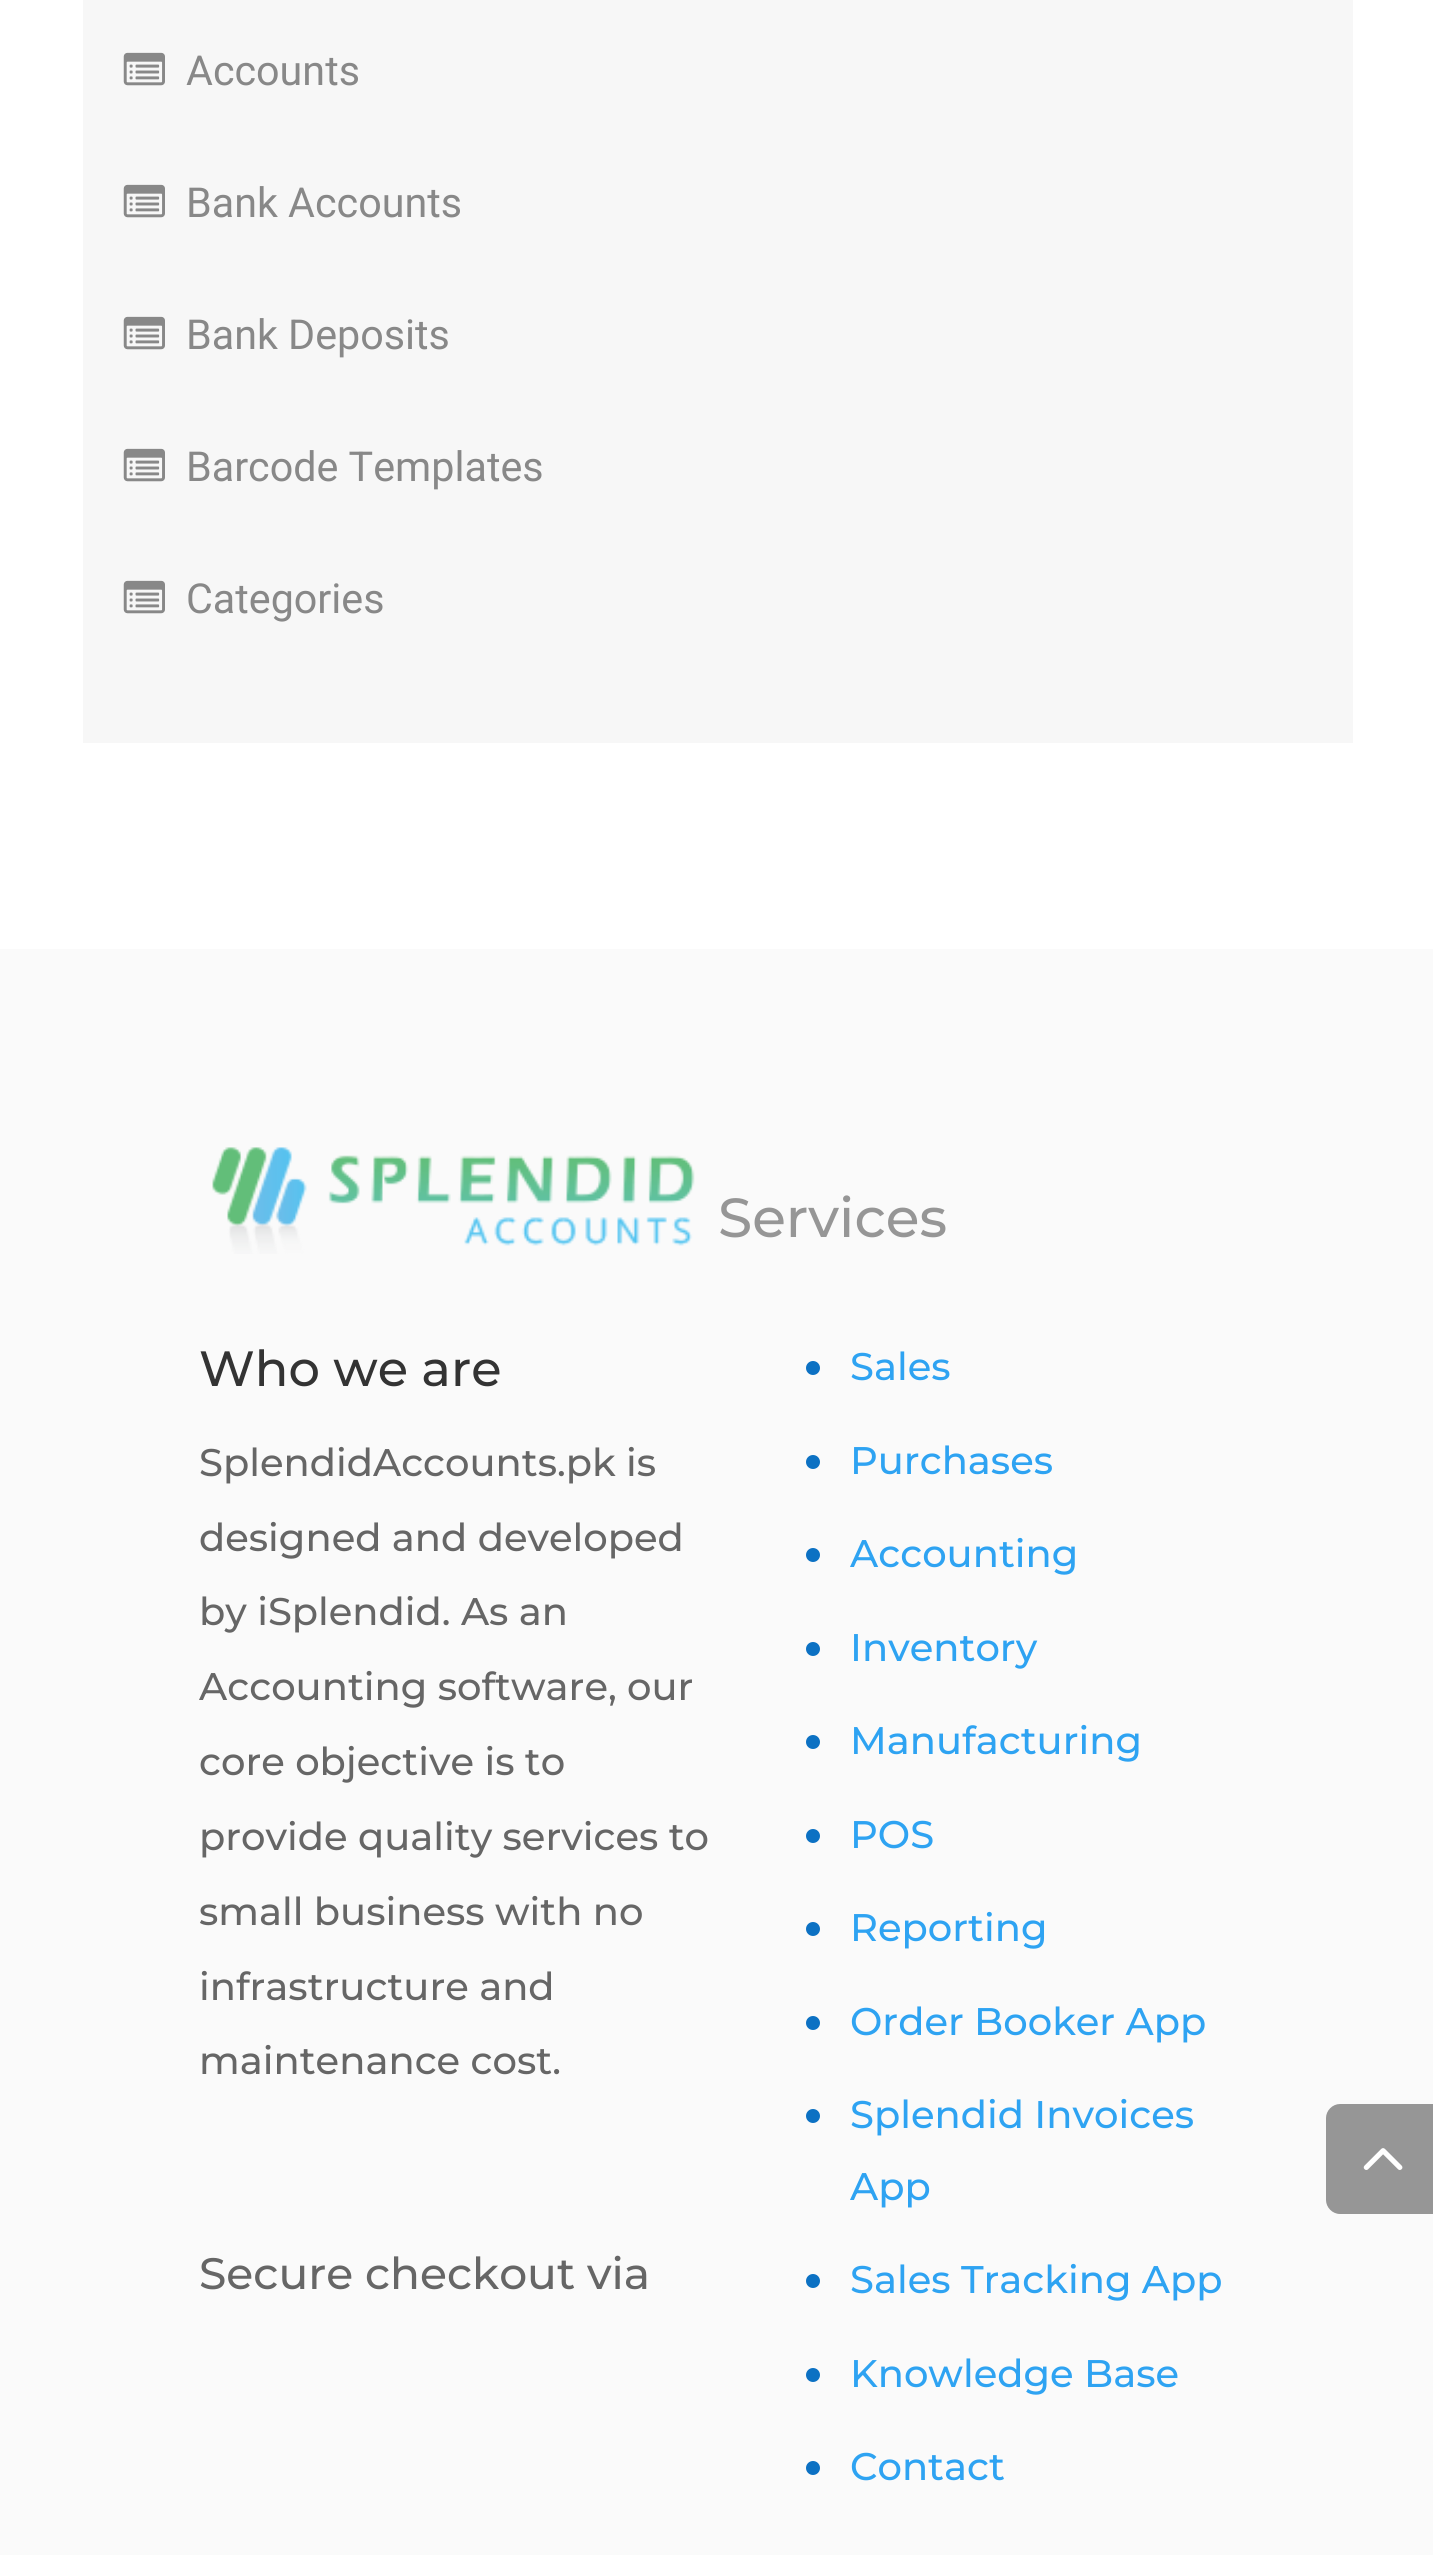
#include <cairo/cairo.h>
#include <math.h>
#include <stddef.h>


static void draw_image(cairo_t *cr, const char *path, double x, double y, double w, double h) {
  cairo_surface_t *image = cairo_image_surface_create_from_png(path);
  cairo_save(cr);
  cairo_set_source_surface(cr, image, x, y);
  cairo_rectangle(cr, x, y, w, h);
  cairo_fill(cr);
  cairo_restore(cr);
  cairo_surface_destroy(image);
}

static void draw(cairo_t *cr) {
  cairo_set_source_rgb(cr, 1, 1, 1);
  cairo_paint(cr);
  cairo_set_source_rgb(cr, 247 / 255.0, 247 / 255.0, 247 / 255.0);
  cairo_rectangle(cr, 83, 0, 1270, 743);
  cairo_fill(cr);
  draw_image(cr, "images/1.png", 123, 52, 42, 34);
  draw_image(cr, "images/1.png", 123, 184, 42, 34);
  draw_image(cr, "images/1.png", 123, 316, 42, 34);
  draw_image(cr, "images/1.png", 123, 448, 42, 34);
  draw_image(cr, "images/1.png", 123, 580, 42, 34);
  cairo_set_source_rgb(cr, 250 / 255.0, 250 / 255.0, 250 / 255.0);
  cairo_rectangle(cr, 0, 949, 1433, 1606);
  cairo_fill(cr);
  draw_image(cr, "images/2.png", 212, 1147, 483, 107);
  cairo_set_source_rgb(cr, 12 / 255.0, 113 / 255.0, 195 / 255.0);
  cairo_arc(cr, 813, 1368, 7, 0, 2 * M_PI);
  cairo_fill(cr);
  cairo_arc(cr, 813, 1462, 7, 0, 2 * M_PI);
  cairo_fill(cr);
  cairo_arc(cr, 813, 1555, 7, 0, 2 * M_PI);
  cairo_fill(cr);
  cairo_arc(cr, 813, 1649, 7, 0, 2 * M_PI);
  cairo_fill(cr);
  cairo_arc(cr, 813, 1742, 7, 0, 2 * M_PI);
  cairo_fill(cr);
  cairo_arc(cr, 813, 1836, 7, 0, 2 * M_PI);
  cairo_fill(cr);
  cairo_arc(cr, 813, 1929, 7, 0, 2 * M_PI);
  cairo_fill(cr);
  cairo_arc(cr, 813, 2023, 7, 0, 2 * M_PI);
  cairo_fill(cr);
  cairo_arc(cr, 813, 2116, 7, 0, 2 * M_PI);
  cairo_fill(cr);
  cairo_arc(cr, 813, 2281, 7, 0, 2 * M_PI);
  cairo_fill(cr);
  cairo_arc(cr, 813, 2375, 7, 0, 2 * M_PI);
  cairo_fill(cr);
  cairo_arc(cr, 813, 2468, 7, 0, 2 * M_PI);
  cairo_fill(cr);
  cairo_set_source_rgb(cr, 150 / 255.0, 150 / 255.0, 150 / 255.0);
  cairo_new_path(cr);
  cairo_move_to(cr, 1340, 2104);
  cairo_line_to(cr, 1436, 2104);
  cairo_line_to(cr, 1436, 2214);
  cairo_line_to(cr, 1340, 2214);
  cairo_curve_to(cr, 1332.5, 2214, 1326, 2207.5, 1326, 2200);
  cairo_line_to(cr, 1326, 2118);
  cairo_curve_to(cr, 1326, 2110.5, 1332.5, 2104, 1340, 2104);
  cairo_close_path(cr);
  cairo_fill(cr);
  draw_image(cr, "images/3.png", 1363, 2148, 40, 22);
  cairo_select_font_face(cr, "Roboto", CAIRO_FONT_SLANT_NORMAL, CAIRO_FONT_WEIGHT_NORMAL);
  cairo_set_font_size(cr, 41.25);
  cairo_set_source_rgb(cr, 136 / 255.0, 136 / 255.0, 136 / 255.0);
  cairo_move_to(cr, 186, 85);
  cairo_show_text(cr, "Accounts");
  cairo_move_to(cr, 186, 217);
  cairo_show_text(cr, "Bank Accounts");
  cairo_move_to(cr, 186, 349);
  cairo_show_text(cr, "Bank Deposits");
  cairo_move_to(cr, 186, 481);
  cairo_show_text(cr, "Barcode Templates");
  cairo_move_to(cr, 186, 613);
  cairo_show_text(cr, "Categories");
  cairo_select_font_face(cr, "Montserrat Thin", CAIRO_FONT_SLANT_NORMAL, CAIRO_FONT_WEIGHT_NORMAL);
  cairo_set_font_size(cr, 49.5);
  cairo_set_source_rgb(cr, 51 / 255.0, 51 / 255.0, 51 / 255.0);
  cairo_move_to(cr, 199, 1386);
  cairo_show_text(cr, "Who we are");
  cairo_set_font_size(cr, 38.5);
  cairo_set_source_rgb(cr, 102 / 255.0, 102 / 255.0, 102 / 255.0);
  cairo_move_to(cr, 199, 1476);
  cairo_show_text(cr, "SplendidAccounts.pk is");
  cairo_move_to(cr, 199, 1551);
  cairo_show_text(cr, "designed and developed");
  cairo_move_to(cr, 199, 1625);
  cairo_show_text(cr, "by iSplendid. As an");
  cairo_move_to(cr, 199, 1700);
  cairo_show_text(cr, "Accounting software, our");
  cairo_move_to(cr, 199, 1775);
  cairo_show_text(cr, "core objective is to");
  cairo_move_to(cr, 199, 1850);
  cairo_show_text(cr, "provide quality services to");
  cairo_move_to(cr, 199, 1925);
  cairo_show_text(cr, "small business with no");
  cairo_move_to(cr, 199, 2000);
  cairo_show_text(cr, "infrastructure and");
  cairo_move_to(cr, 199, 2074);
  cairo_show_text(cr, "maintenance cost.");
  cairo_set_font_size(cr, 44);
  cairo_move_to(cr, 199, 2289);
  cairo_show_text(cr, "Secure checkout via");
  cairo_set_font_size(cr, 55);
  cairo_set_source_rgb(cr, 150 / 255.0, 150 / 255.0, 150 / 255.0);
  cairo_move_to(cr, 718, 1237);
  cairo_show_text(cr, "Services");
  cairo_set_font_size(cr, 38.5);
  cairo_set_source_rgb(cr, 46 / 255.0, 163 / 255.0, 242 / 255.0);
  cairo_move_to(cr, 850, 1380);
  cairo_show_text(cr, "Sales");
  cairo_move_to(cr, 850, 1474);
  cairo_show_text(cr, "Purchases");
  cairo_move_to(cr, 850, 1567);
  cairo_show_text(cr, "Accounting");
  cairo_move_to(cr, 850, 1661);
  cairo_show_text(cr, "Inventory");
  cairo_move_to(cr, 850, 1754);
  cairo_show_text(cr, "Manufacturing");
  cairo_move_to(cr, 850, 1848);
  cairo_show_text(cr, "POS");
  cairo_move_to(cr, 850, 1941);
  cairo_show_text(cr, "Reporting");
  cairo_move_to(cr, 850, 2035);
  cairo_show_text(cr, "Order Booker App");
  cairo_move_to(cr, 850, 2128);
  cairo_show_text(cr, "Splendid Invoices");
  cairo_move_to(cr, 850, 2200);
  cairo_show_text(cr, "App");
  cairo_move_to(cr, 850, 2293);
  cairo_show_text(cr, "Sales Tracking App");
  cairo_move_to(cr, 850, 2387);
  cairo_show_text(cr, "Knowledge Base");
  cairo_move_to(cr, 850, 2480);
  cairo_show_text(cr, "Contact");
}

int main(void) {
  cairo_surface_t *surface = cairo_image_surface_create(CAIRO_FORMAT_RGB24, 1433, 2555);
  cairo_t *cr = cairo_create(surface);
  cairo_font_options_t *options = cairo_font_options_create();
  cairo_font_options_set_hint_metrics(options, CAIRO_HINT_METRICS_OFF);
  cairo_font_options_set_hint_style(options, CAIRO_HINT_STYLE_NONE);
  cairo_set_font_options(cr, options);
  cairo_set_miter_limit(cr, 4);
  draw(cr);
  cairo_surface_write_to_png(surface, "out.png");
  cairo_font_options_destroy(options);
  cairo_destroy(cr);
  cairo_surface_destroy(surface);
  return 0;
}
